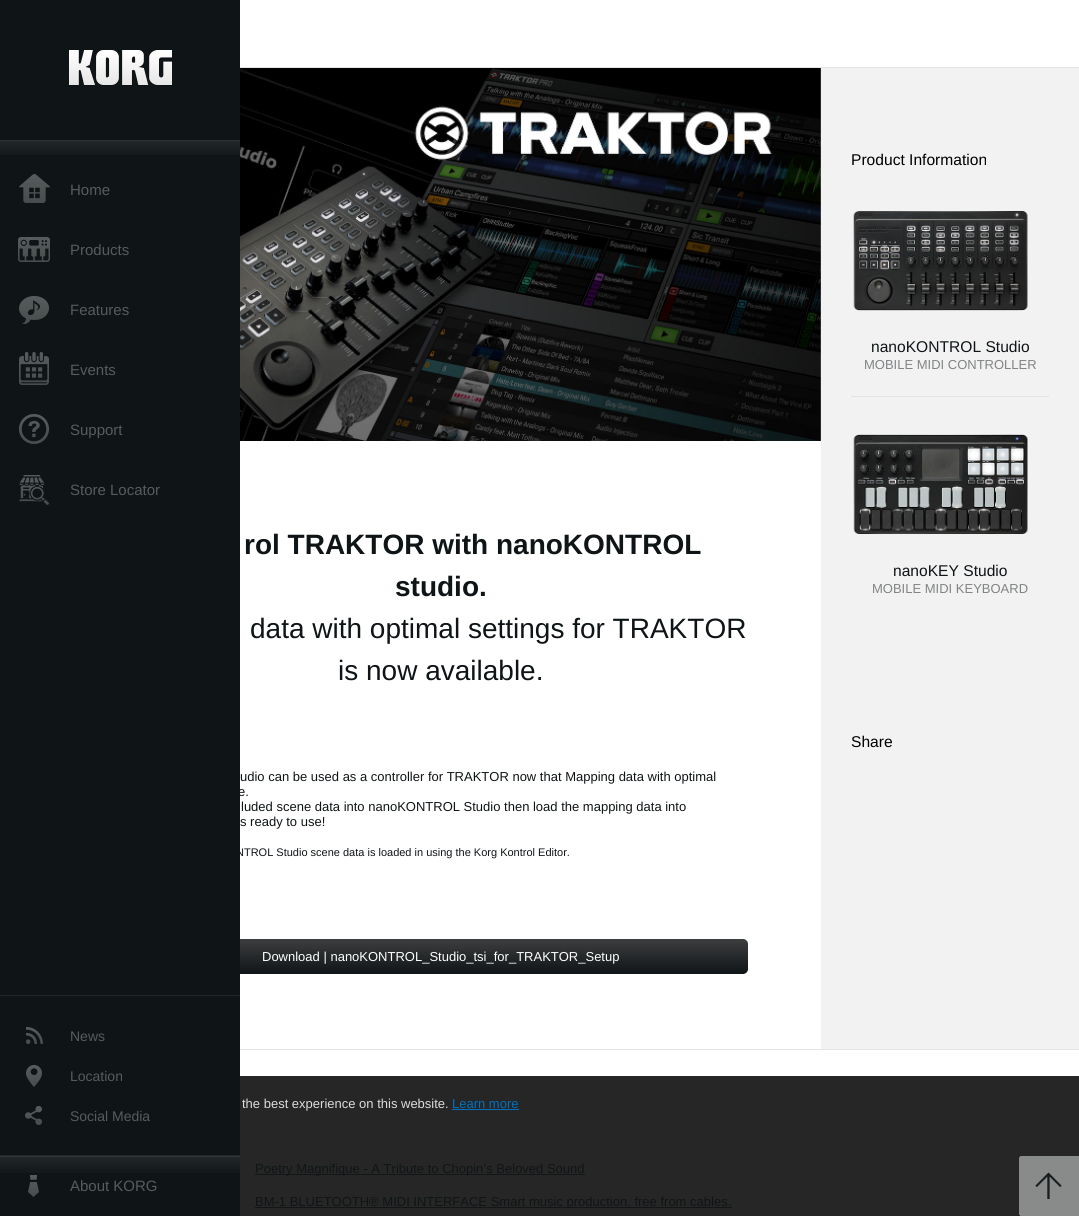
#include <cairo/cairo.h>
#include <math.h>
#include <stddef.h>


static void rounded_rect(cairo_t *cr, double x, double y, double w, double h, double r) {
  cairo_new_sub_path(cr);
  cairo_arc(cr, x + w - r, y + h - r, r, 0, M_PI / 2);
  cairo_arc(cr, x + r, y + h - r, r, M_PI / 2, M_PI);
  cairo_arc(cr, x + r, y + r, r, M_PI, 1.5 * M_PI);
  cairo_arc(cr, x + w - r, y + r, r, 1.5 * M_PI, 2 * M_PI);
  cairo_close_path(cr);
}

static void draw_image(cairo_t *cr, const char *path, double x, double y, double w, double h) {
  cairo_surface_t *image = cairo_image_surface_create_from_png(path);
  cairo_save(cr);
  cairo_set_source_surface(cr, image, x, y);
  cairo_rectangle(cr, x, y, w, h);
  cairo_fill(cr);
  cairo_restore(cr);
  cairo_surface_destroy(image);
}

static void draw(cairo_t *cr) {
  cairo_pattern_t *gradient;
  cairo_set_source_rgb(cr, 1, 1, 1);
  cairo_paint(cr);
  gradient = cairo_pattern_create_linear(440, 939, 440, 974);
  cairo_pattern_add_color_stop_rgba(gradient, 0, 61 / 255.0, 62 / 255.0, 63 / 255.0, 1);
  cairo_pattern_add_color_stop_rgba(gradient, 1, 15 / 255.0, 20 / 255.0, 22 / 255.0, 1);
  cairo_set_source(cr, gradient);
  cairo_pattern_destroy(gradient);
  rounded_rect(cr, 132, 939, 616, 35, 5);
  cairo_fill(cr);
  cairo_set_source_rgb(cr, 15 / 255.0, 20 / 255.0, 22 / 255.0);
  cairo_rectangle(cr, 0, 141, 240, 1075);
  cairo_fill(cr);
  draw_image(cr, "images/1.png", 0, 141, 240, 14);
  cairo_rectangle(cr, 0, 0, 240, 140);
  cairo_fill(cr);
  cairo_set_source_rgb(cr, 45 / 255.0, 49 / 255.0, 51 / 255.0);
  cairo_rectangle(cr, 0, 140, 240, 1);
  cairo_fill(cr);
  draw_image(cr, "images/2.png", 69, 50, 103, 36);
  draw_image(cr, "images/3.png", 19, 174, 31, 29);
  draw_image(cr, "images/4.png", 18, 237, 32, 25);
  draw_image(cr, "images/5.png", 19, 296, 30, 28);
  draw_image(cr, "images/6.png", 19, 352, 30, 33);
  draw_image(cr, "images/7.png", 19, 414, 30, 30);
  draw_image(cr, "images/8.png", 19, 475, 30, 30);
  cairo_set_source_rgb(cr, 34 / 255.0, 38 / 255.0, 40 / 255.0);
  cairo_rectangle(cr, 0, 995, 240, 1);
  cairo_fill(cr);
  draw_image(cr, "images/9.png", 26, 1027, 17, 17);
  draw_image(cr, "images/10.png", 26, 1065, 16, 22);
  draw_image(cr, "images/11.png", 25, 1106, 17, 19);
  draw_image(cr, "images/12.png", 0, 1156, 240, 17);
  cairo_rectangle(cr, 0, 1155, 240, 1);
  cairo_fill(cr);
  draw_image(cr, "images/13.png", 28, 1175, 11, 22);
  cairo_set_source_rgb(cr, 38 / 255.0, 38 / 255.0, 38 / 255.0);
  cairo_rectangle(cr, 240, 1076, 839, 140);
  cairo_fill(cr);
  cairo_set_source_rgb(cr, 229 / 255.0, 229 / 255.0, 229 / 255.0);
  cairo_rectangle(cr, 240, 67, 839, 1);
  cairo_fill(cr);
  draw_image(cr, "images/14.png", 240, 68, 581, 373);
  cairo_set_source_rgb(cr, 242 / 255.0, 242 / 255.0, 242 / 255.0);
  cairo_rectangle(cr, 821, 68, 258, 981);
  cairo_fill(cr);
  cairo_set_source_rgb(cr, 227 / 255.0, 227 / 255.0, 227 / 255.0);
  cairo_rectangle(cr, 851, 396, 198, 1);
  cairo_fill(cr);
  draw_image(cr, "images/15.png", 853, 210, 175, 101);
  draw_image(cr, "images/16.png", 853, 434, 175, 100);
  cairo_set_source_rgb(cr, 0, 114 / 255.0, 192 / 255.0);
  cairo_rectangle(cr, 452, 1109, 67, 1);
  cairo_fill(cr);
  cairo_set_source_rgb(cr, 229 / 255.0, 229 / 255.0, 229 / 255.0);
  cairo_rectangle(cr, 240, 1049, 839, 1);
  cairo_fill(cr);
  cairo_set_source_rgb(cr, 20 / 255.0, 21 / 255.0, 21 / 255.0);
  cairo_rectangle(cr, 255, 1174, 330, 1);
  cairo_fill(cr);
  cairo_rectangle(cr, 255, 1207, 477, 1);
  cairo_fill(cr);
  draw_image(cr, "images/17.png", 1019, 1156, 60, 60);
  cairo_select_font_face(cr, "Liberation Sans", CAIRO_FONT_SLANT_NORMAL, CAIRO_FONT_WEIGHT_NORMAL);
  cairo_set_font_size(cr, 15);
  cairo_set_source_rgb(cr, 87 / 255.0, 91 / 255.0, 92 / 255.0);
  cairo_move_to(cr, 70, 195);
  cairo_show_text(cr, "Home");
  cairo_move_to(cr, 70, 255);
  cairo_show_text(cr, "Products");
  cairo_move_to(cr, 70, 315);
  cairo_show_text(cr, "Features");
  cairo_move_to(cr, 70, 375);
  cairo_show_text(cr, "Events");
  cairo_move_to(cr, 70, 435);
  cairo_show_text(cr, "Support");
  cairo_move_to(cr, 70, 495);
  cairo_show_text(cr, "Store Locator");
  cairo_set_font_size(cr, 14);
  cairo_move_to(cr, 70, 1041);
  cairo_show_text(cr, "News");
  cairo_move_to(cr, 70, 1081);
  cairo_show_text(cr, "Location");
  cairo_move_to(cr, 70, 1121);
  cairo_show_text(cr, "Social Media");
  cairo_set_font_size(cr, 15);
  cairo_move_to(cr, 70, 1191);
  cairo_show_text(cr, "About KORG");
  cairo_select_font_face(cr, "Liberation Sans", CAIRO_FONT_SLANT_NORMAL, CAIRO_FONT_WEIGHT_BOLD);
  cairo_set_font_size(cr, 28);
  cairo_set_source_rgb(cr, 15 / 255.0, 20 / 255.0, 22 / 255.0);
  cairo_move_to(cr, 244, 554);
  cairo_show_text(cr, "rol TRAKTOR with nanoKONTROL");
  cairo_move_to(cr, 395, 596);
  cairo_show_text(cr, "studio.");
  cairo_select_font_face(cr, "Liberation Sans", CAIRO_FONT_SLANT_NORMAL, CAIRO_FONT_WEIGHT_NORMAL);
  cairo_move_to(cr, 250, 638);
  cairo_show_text(cr, "data with optimal settings for TRAKTOR");
  cairo_move_to(cr, 338, 680);
  cairo_show_text(cr, "is now available.");
  cairo_set_font_size(cr, 13);
  cairo_move_to(cr, 240, 781);
  cairo_show_text(cr, "udio can be used as a controller for TRAKTOR now that Mapping data with optimal");
  cairo_move_to(cr, 238, 796);
  cairo_show_text(cr, "e.");
  cairo_move_to(cr, 241, 811);
  cairo_show_text(cr, "luded scene data into nanoKONTROL Studio then load the mapping data into");
  cairo_move_to(cr, 240, 826);
  cairo_show_text(cr, "s ready to use!");
  cairo_set_font_size(cr, 11);
  cairo_move_to(cr, 236, 856);
  cairo_show_text(cr, "NTROL Studio scene data is loaded in using the Korg Kontrol Editor.");
  cairo_set_font_size(cr, 13);
  cairo_set_source_rgb(cr, 1, 1, 1);
  cairo_move_to(cr, 262, 961);
  cairo_show_text(cr, "Download | nanoKONTROL_Studio_tsi_for_TRAKTOR_Setup");
  cairo_set_font_size(cr, 15.6);
  cairo_set_source_rgb(cr, 0, 0, 0);
  cairo_move_to(cr, 851, 165);
  cairo_show_text(cr, "Product Information");
  cairo_set_source_rgb(cr, 15 / 255.0, 20 / 255.0, 22 / 255.0);
  cairo_move_to(cr, 871, 352);
  cairo_show_text(cr, "nanoKONTROL Studio");
  cairo_set_font_size(cr, 13);
  cairo_set_source_rgb(cr, 129 / 255.0, 131 / 255.0, 132 / 255.0);
  cairo_move_to(cr, 864, 369);
  cairo_show_text(cr, "MOBILE MIDI CONTROLLER");
  cairo_set_font_size(cr, 15.6);
  cairo_set_source_rgb(cr, 15 / 255.0, 20 / 255.0, 22 / 255.0);
  cairo_move_to(cr, 893, 576);
  cairo_show_text(cr, "nanoKEY Studio");
  cairo_set_font_size(cr, 13);
  cairo_set_source_rgb(cr, 129 / 255.0, 131 / 255.0, 132 / 255.0);
  cairo_move_to(cr, 872, 593);
  cairo_show_text(cr, "MOBILE MIDI KEYBOARD");
  cairo_set_font_size(cr, 15.6);
  cairo_set_source_rgb(cr, 0, 0, 0);
  cairo_move_to(cr, 851, 747);
  cairo_show_text(cr, "Share");
  cairo_set_font_size(cr, 13);
  cairo_set_source_rgb(cr, 220 / 255.0, 220 / 255.0, 220 / 255.0);
  cairo_move_to(cr, 242, 1108);
  cairo_show_text(cr, "the best experience on this website.");
  cairo_set_source_rgb(cr, 0, 114 / 255.0, 192 / 255.0);
  cairo_move_to(cr, 452, 1108);
  cairo_show_text(cr, "Learn more");
  cairo_set_source_rgb(cr, 15 / 255.0, 20 / 255.0, 22 / 255.0);
  cairo_move_to(cr, 255, 1173);
  cairo_show_text(cr, "Poetry Magnifique - A Tribute to Chopin’s Beloved Sound");
  cairo_move_to(cr, 255, 1206);
  cairo_show_text(cr, "BM-1 BLUETOOTH® MIDI INTERFACE Smart music production, free from cables.");
}

int main(void) {
  cairo_surface_t *surface = cairo_image_surface_create(CAIRO_FORMAT_RGB24, 1079, 1216);
  cairo_t *cr = cairo_create(surface);
  cairo_font_options_t *options = cairo_font_options_create();
  cairo_font_options_set_hint_metrics(options, CAIRO_HINT_METRICS_OFF);
  cairo_font_options_set_hint_style(options, CAIRO_HINT_STYLE_NONE);
  cairo_set_font_options(cr, options);
  cairo_set_miter_limit(cr, 4);
  draw(cr);
  cairo_surface_write_to_png(surface, "out.png");
  cairo_font_options_destroy(options);
  cairo_destroy(cr);
  cairo_surface_destroy(surface);
  return 0;
}
